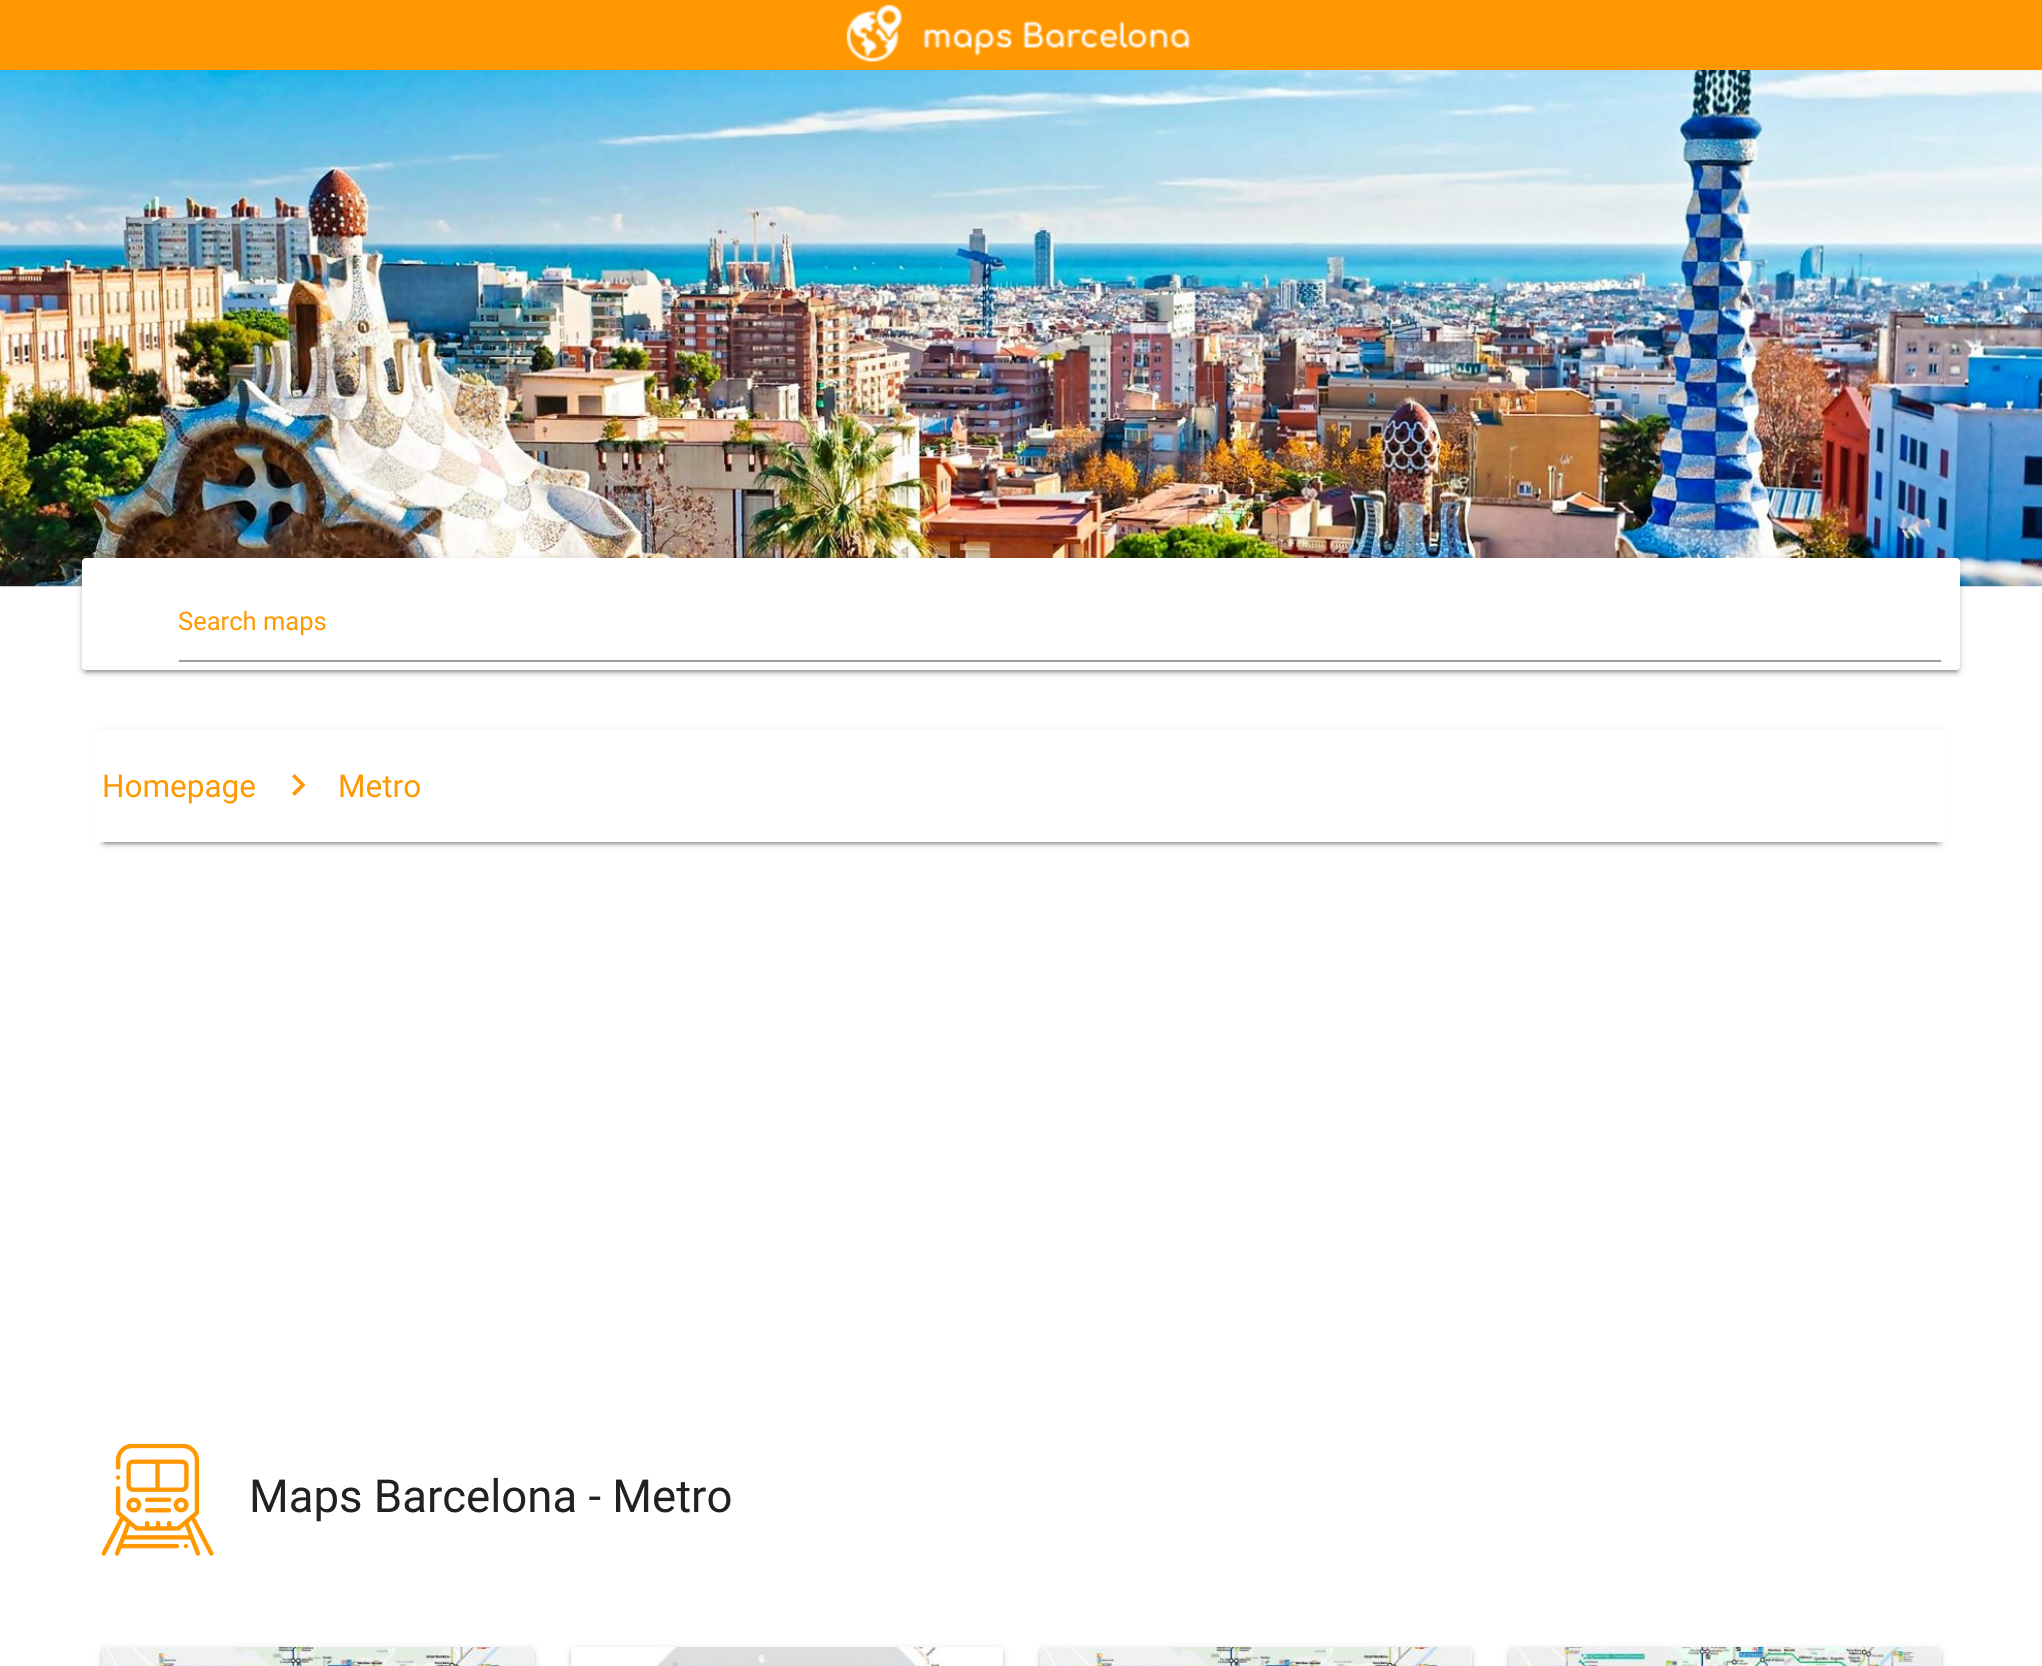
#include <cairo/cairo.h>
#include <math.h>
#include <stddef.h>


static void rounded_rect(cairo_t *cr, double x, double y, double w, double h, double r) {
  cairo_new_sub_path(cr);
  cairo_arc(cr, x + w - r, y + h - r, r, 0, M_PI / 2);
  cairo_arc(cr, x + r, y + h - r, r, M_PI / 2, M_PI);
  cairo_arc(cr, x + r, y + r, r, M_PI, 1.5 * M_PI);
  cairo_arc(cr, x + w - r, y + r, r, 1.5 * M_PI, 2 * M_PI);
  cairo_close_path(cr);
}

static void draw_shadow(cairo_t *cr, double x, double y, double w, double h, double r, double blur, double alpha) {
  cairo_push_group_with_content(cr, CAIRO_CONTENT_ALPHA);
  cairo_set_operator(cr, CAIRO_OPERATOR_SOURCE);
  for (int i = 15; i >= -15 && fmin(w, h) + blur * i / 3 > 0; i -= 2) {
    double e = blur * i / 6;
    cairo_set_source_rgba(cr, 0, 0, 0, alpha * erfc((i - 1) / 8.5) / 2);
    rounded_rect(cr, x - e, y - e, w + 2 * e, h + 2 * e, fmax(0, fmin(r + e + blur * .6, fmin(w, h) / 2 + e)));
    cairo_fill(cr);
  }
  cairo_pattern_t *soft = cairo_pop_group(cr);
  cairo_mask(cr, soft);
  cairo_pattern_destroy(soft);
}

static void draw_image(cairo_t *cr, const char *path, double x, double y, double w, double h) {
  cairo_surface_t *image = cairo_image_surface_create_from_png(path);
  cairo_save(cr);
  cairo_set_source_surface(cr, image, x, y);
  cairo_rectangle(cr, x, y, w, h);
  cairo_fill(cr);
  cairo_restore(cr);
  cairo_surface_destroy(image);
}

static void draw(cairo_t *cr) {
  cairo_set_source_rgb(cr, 1, 1, 1);
  cairo_paint(cr);
  cairo_set_source_rgb(cr, 1, 152 / 255.0, 0);
  cairo_rectangle(cr, 0, 0, 2042, 70);
  cairo_fill(cr);
  draw_image(cr, "images/1.png", 846, 4, 345, 58);
  draw_image(cr, "images/2.png", 0, 70, 2042, 517);
  cairo_set_source_rgb(cr, 0, 0, 0);
  draw_shadow(cr, 86, 567, 1871, 105, 0, 1, 0.2);
  draw_shadow(cr, 82, 560, 1878, 112, 4, 4.5, 0.12);
  draw_shadow(cr, 82, 562, 1878, 112, 4, 2, 0.14);
  cairo_set_source_rgb(cr, 1, 1, 1);
  rounded_rect(cr, 82, 558, 1878, 112, 4);
  cairo_fill(cr);
  cairo_set_source_rgb(cr, 158 / 255.0, 158 / 255.0, 158 / 255.0);
  cairo_rectangle(cr, 179, 660, 1762, 2);
  cairo_fill(cr);
  cairo_set_source_rgb(cr, 0, 0, 0);
  draw_shadow(cr, 105, 739, 1832, 105, 0, 1, 0.2);
  draw_shadow(cr, 102, 732, 1839, 112, 0, 4.5, 0.12);
  draw_shadow(cr, 102, 733, 1839, 112, 0, 2, 0.14);
  cairo_set_source_rgb(cr, 1, 1, 1);
  cairo_rectangle(cr, 96, 730, 1851, 112);
  cairo_fill(cr);
  cairo_set_source_rgb(cr, 1, 152 / 255.0, 0);
  cairo_new_path(cr);
  cairo_move_to(cr, 294.5, 774);
  cairo_line_to(cr, 305.5, 785);
  cairo_line_to(cr, 294.5, 796);
  cairo_line_to(cr, 292, 793);
  cairo_line_to(cr, 300.5, 785);
  cairo_line_to(cr, 292, 776.5);
  cairo_close_path(cr);
  cairo_fill(cr);
  draw_image(cr, "images/3.png", 102, 1444, 112, 112);
  cairo_set_source_rgb(cr, 0, 0, 0);
  draw_shadow(cr, 102, 1649, 432, 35, 4, 4.5, 0.12);
  draw_shadow(cr, 102, 1650, 432, 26, 4, 2, 0.14);
  cairo_set_source_rgb(cr, 1, 1, 1);
  rounded_rect(cr, 102, 1647, 432, 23, 4);
  cairo_fill(cr);
  draw_image(cr, "images/4.png", 102, 1646, 432, 20);
  cairo_set_source_rgb(cr, 0, 0, 0);
  draw_shadow(cr, 571, 1649, 432, 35, 4, 4.5, 0.12);
  draw_shadow(cr, 571, 1650, 432, 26, 4, 2, 0.14);
  cairo_set_source_rgb(cr, 1, 1, 1);
  rounded_rect(cr, 571, 1647, 432, 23, 4);
  cairo_fill(cr);
  draw_image(cr, "images/5.png", 656, 1646, 286, 20);
  cairo_set_source_rgb(cr, 0, 0, 0);
  draw_shadow(cr, 1040, 1649, 432, 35, 4, 4.5, 0.12);
  draw_shadow(cr, 1040, 1650, 432, 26, 4, 2, 0.14);
  cairo_set_source_rgb(cr, 1, 1, 1);
  rounded_rect(cr, 1040, 1647, 432, 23, 4);
  cairo_fill(cr);
  draw_image(cr, "images/4.png", 1040, 1646, 432, 20);
  cairo_set_source_rgb(cr, 0, 0, 0);
  draw_shadow(cr, 1509, 1649, 432, 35, 4, 4.5, 0.12);
  draw_shadow(cr, 1509, 1650, 432, 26, 4, 2, 0.14);
  cairo_set_source_rgb(cr, 1, 1, 1);
  rounded_rect(cr, 1509, 1647, 432, 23, 4);
  cairo_fill(cr);
  draw_image(cr, "images/6.png", 1509, 1646, 432, 20);
  cairo_select_font_face(cr, "Roboto", CAIRO_FONT_SLANT_NORMAL, CAIRO_FONT_WEIGHT_NORMAL);
  cairo_set_font_size(cr, 25.5);
  cairo_set_source_rgb(cr, 1, 152 / 255.0, 0);
  cairo_move_to(cr, 178, 630);
  cairo_show_text(cr, "Search maps");
  cairo_set_font_size(cr, 31.5);
  cairo_move_to(cr, 102, 797);
  cairo_show_text(cr, "Homepage");
  cairo_move_to(cr, 338, 797);
  cairo_show_text(cr, "Metro");
  cairo_set_font_size(cr, 45.5);
  cairo_set_source_rgb(cr, 33 / 255.0, 33 / 255.0, 33 / 255.0);
  cairo_move_to(cr, 249, 1512);
  cairo_show_text(cr, "Maps Barcelona - Metro");
}

int main(void) {
  cairo_surface_t *surface = cairo_image_surface_create(CAIRO_FORMAT_RGB24, 2042, 1666);
  cairo_t *cr = cairo_create(surface);
  cairo_font_options_t *options = cairo_font_options_create();
  cairo_font_options_set_hint_metrics(options, CAIRO_HINT_METRICS_OFF);
  cairo_font_options_set_hint_style(options, CAIRO_HINT_STYLE_NONE);
  cairo_set_font_options(cr, options);
  cairo_set_miter_limit(cr, 4);
  draw(cr);
  cairo_surface_write_to_png(surface, "out.png");
  cairo_font_options_destroy(options);
  cairo_destroy(cr);
  cairo_surface_destroy(surface);
  return 0;
}
